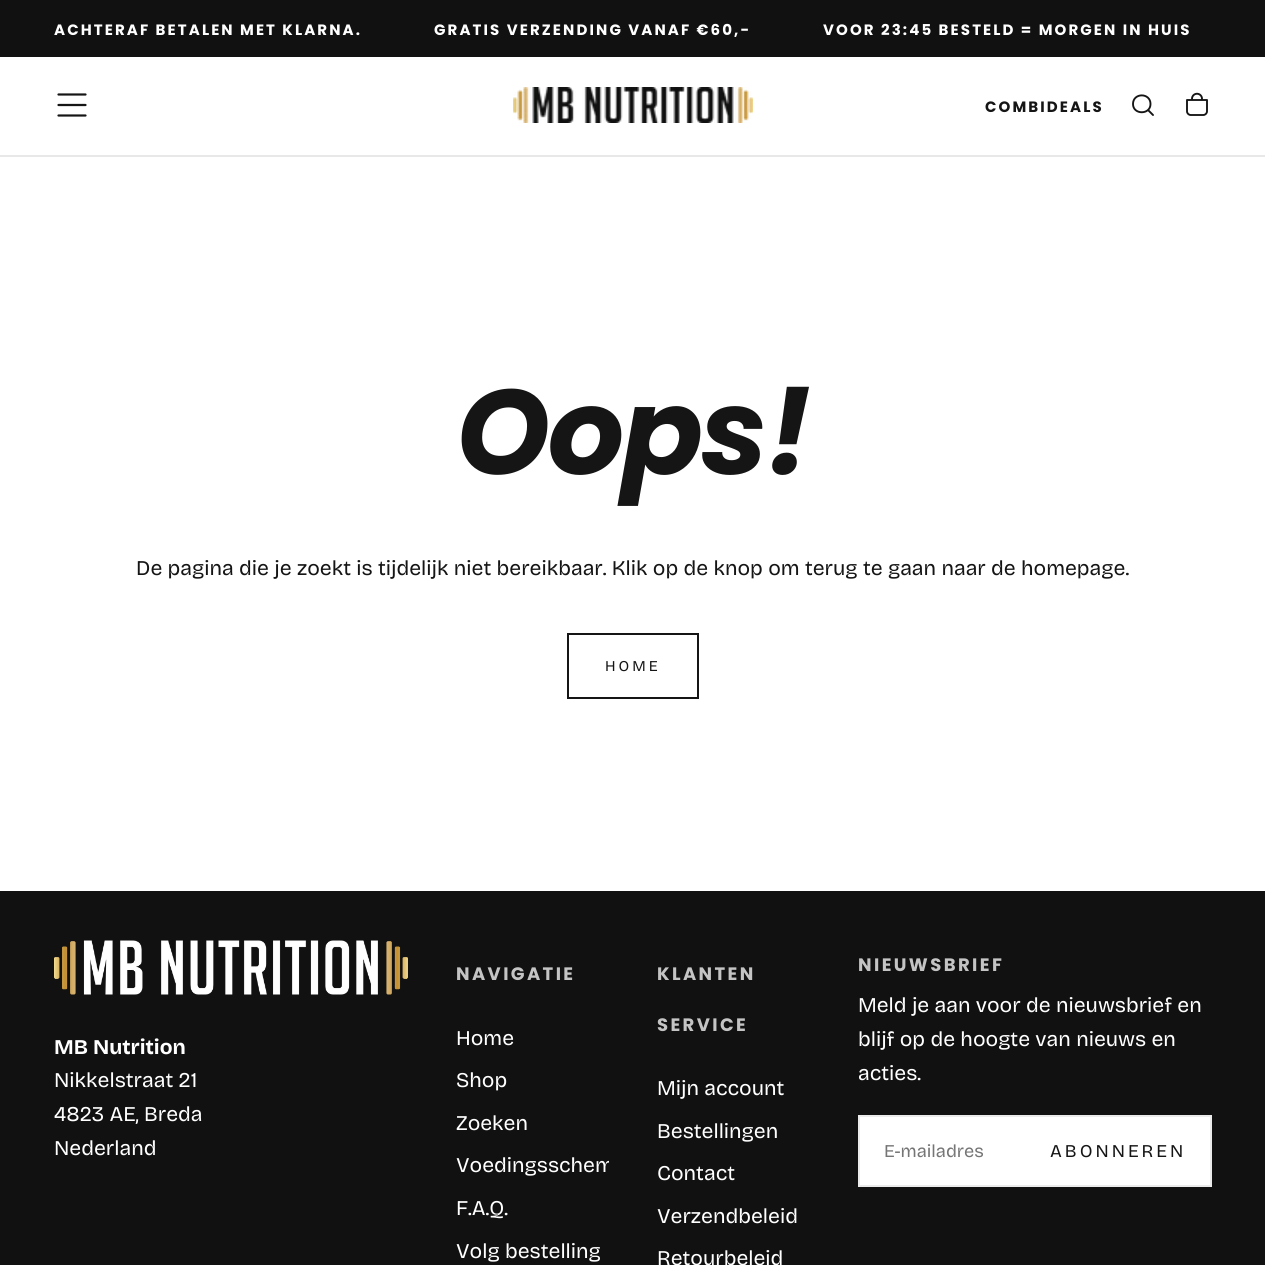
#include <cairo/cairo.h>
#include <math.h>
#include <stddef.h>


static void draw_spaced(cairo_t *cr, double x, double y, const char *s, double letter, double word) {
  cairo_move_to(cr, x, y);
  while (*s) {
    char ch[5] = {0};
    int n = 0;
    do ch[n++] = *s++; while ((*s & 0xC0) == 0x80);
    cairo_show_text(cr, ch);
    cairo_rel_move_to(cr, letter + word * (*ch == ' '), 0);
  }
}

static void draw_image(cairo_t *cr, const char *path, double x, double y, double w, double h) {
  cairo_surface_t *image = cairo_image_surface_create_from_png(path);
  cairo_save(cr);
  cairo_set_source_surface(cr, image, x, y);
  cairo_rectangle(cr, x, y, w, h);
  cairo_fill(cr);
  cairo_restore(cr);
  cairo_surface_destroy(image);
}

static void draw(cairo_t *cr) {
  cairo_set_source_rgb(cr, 1, 1, 1);
  cairo_paint(cr);
  cairo_set_source_rgb(cr, 17 / 255.0, 17 / 255.0, 17 / 255.0);
  cairo_rectangle(cr, 0, 0, 1265, 57);
  cairo_fill(cr);
  cairo_set_source_rgb(cr, 232 / 255.0, 232 / 255.0, 232 / 255.0);
  cairo_rectangle(cr, 0, 155, 1265, 2);
  cairo_fill(cr);
  cairo_new_path(cr);
  cairo_move_to(cr, 58.5, 105);
  cairo_line_to(cr, 85.5, 105);
  cairo_move_to(cr, 58.5, 94.5);
  cairo_line_to(cr, 85.5, 94.5);
  cairo_move_to(cr, 58.5, 115.5);
  cairo_line_to(cr, 85.5, 115.5);
  cairo_set_source_rgb(cr, 21 / 255.0, 21 / 255.0, 21 / 255.0);
  cairo_set_line_width(cr, 2.2);
  cairo_set_line_cap(cr, CAIRO_LINE_CAP_ROUND);
  cairo_stroke(cr);
  draw_image(cr, "images/1.png", 513, 87, 240, 36);
  cairo_new_path(cr);
  cairo_move_to(cr, 1153, 115);
  cairo_line_to(cr, 1148, 110);
  cairo_move_to(cr, 1150.5, 104);
  cairo_curve_to(cr, 1150.5, 115, 1133, 115, 1133, 104);
  cairo_curve_to(cr, 1133, 92.5, 1150.5, 92.5, 1150.5, 104);
  cairo_close_path(cr);
  cairo_set_line_width(cr, 1.9);
  cairo_stroke(cr);
  draw_image(cr, "images/2.png", 1186, 92, 22, 24);
  cairo_rectangle(cr, 568, 634, 130, 64);
  cairo_set_line_width(cr, 2);
  cairo_set_line_cap(cr, CAIRO_LINE_CAP_BUTT);
  cairo_stroke(cr);
  cairo_set_source_rgb(cr, 17 / 255.0, 17 / 255.0, 17 / 255.0);
  cairo_rectangle(cr, 0, 891, 1265, 374);
  cairo_fill(cr);
  draw_image(cr, "images/3.png", 54, 940, 354, 55);
  cairo_set_source_rgb(cr, 1, 1, 1);
  cairo_rectangle(cr, 859, 1116, 352, 70);
  cairo_fill_preserve(cr);
  cairo_set_source_rgb(cr, 235 / 255.0, 235 / 255.0, 235 / 255.0);
  cairo_stroke(cr);
  cairo_select_font_face(cr, "Poppins", CAIRO_FONT_SLANT_NORMAL, CAIRO_FONT_WEIGHT_BOLD);
  cairo_set_font_size(cr, 15);
  cairo_set_source_rgb(cr, 1, 1, 1);
  draw_spaced(cr, 54, 35, "ACHTERAF BETALEN MET KLARNA.", 2.1, 0);
  draw_spaced(cr, 434, 35, "GRATIS VERZENDING VANAF €60,-", 2.1, 0);
  draw_spaced(cr, 823, 35, "VOOR 23:45 BESTELD = MORGEN IN HUIS", 2.1, 0);
  cairo_set_source_rgb(cr, 21 / 255.0, 21 / 255.0, 21 / 255.0);
  draw_spaced(cr, 985, 112, "COMBIDEALS", 2.1, 0);
  cairo_select_font_face(cr, "Poppins", CAIRO_FONT_SLANT_ITALIC, CAIRO_FONT_WEIGHT_BOLD);
  cairo_set_font_size(cr, 120);
  draw_spaced(cr, 456, 474, "Oops!", -2.5, 0);
  cairo_select_font_face(cr, "Bricolage Grotesque", CAIRO_FONT_SLANT_NORMAL, CAIRO_FONT_WEIGHT_NORMAL);
  cairo_set_font_size(cr, 21);
  cairo_move_to(cr, 136, 575);
  cairo_show_text(cr, "De pagina die je zoekt is tijdelijk niet bereikbaar. Klik op de knop om terug te gaan naar de homepage.");
  cairo_select_font_face(cr, "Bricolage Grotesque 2", CAIRO_FONT_SLANT_NORMAL, CAIRO_FONT_WEIGHT_NORMAL);
  cairo_set_font_size(cr, 15);
  draw_spaced(cr, 605, 671, "HOME", 3, 0);
  cairo_select_font_face(cr, "Bricolage Grotesque", CAIRO_FONT_SLANT_NORMAL, CAIRO_FONT_WEIGHT_BOLD);
  cairo_set_font_size(cr, 21);
  cairo_set_source_rgb(cr, 1, 1, 1);
  cairo_move_to(cr, 54, 1054);
  cairo_show_text(cr, "MB Nutrition");
  cairo_select_font_face(cr, "Bricolage Grotesque", CAIRO_FONT_SLANT_NORMAL, CAIRO_FONT_WEIGHT_NORMAL);
  cairo_move_to(cr, 54, 1087);
  cairo_show_text(cr, "Nikkelstraat 21");
  cairo_move_to(cr, 54, 1121);
  cairo_show_text(cr, "4823 AE, Breda");
  cairo_move_to(cr, 54, 1155);
  cairo_show_text(cr, "Nederland");
  cairo_select_font_face(cr, "Poppins", CAIRO_FONT_SLANT_NORMAL, CAIRO_FONT_WEIGHT_BOLD);
  cairo_set_font_size(cr, 18);
  cairo_set_source_rgb(cr, 196 / 255.0, 196 / 255.0, 196 / 255.0);
  draw_spaced(cr, 456, 980, "NAVIGATIE", 2.4, 0);
  cairo_select_font_face(cr, "Bricolage Grotesque", CAIRO_FONT_SLANT_NORMAL, CAIRO_FONT_WEIGHT_NORMAL);
  cairo_set_font_size(cr, 21);
  cairo_set_source_rgb(cr, 1, 1, 1);
  cairo_move_to(cr, 456, 1045);
  cairo_show_text(cr, "Home");
  cairo_move_to(cr, 456, 1087);
  cairo_show_text(cr, "Shop");
  cairo_move_to(cr, 456, 1130);
  cairo_show_text(cr, "Zoeken");
  cairo_save(cr);
  cairo_rectangle(cr, 456, 939, 153, 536);
  cairo_clip(cr);
  cairo_move_to(cr, 456, 1172);
  cairo_show_text(cr, "Voedingsschem");
  cairo_restore(cr);
  cairo_move_to(cr, 456, 1215);
  cairo_show_text(cr, "F.A.Q.");
  cairo_move_to(cr, 456, 1258);
  cairo_show_text(cr, "Volg bestelling");
  cairo_select_font_face(cr, "Poppins", CAIRO_FONT_SLANT_NORMAL, CAIRO_FONT_WEIGHT_BOLD);
  cairo_set_font_size(cr, 18);
  cairo_set_source_rgb(cr, 196 / 255.0, 196 / 255.0, 196 / 255.0);
  draw_spaced(cr, 657, 980, "KLANTEN", 2.4, 0);
  draw_spaced(cr, 657, 1031, "SERVICE", 2.4, 0);
  cairo_select_font_face(cr, "Bricolage Grotesque", CAIRO_FONT_SLANT_NORMAL, CAIRO_FONT_WEIGHT_NORMAL);
  cairo_set_font_size(cr, 21);
  cairo_set_source_rgb(cr, 1, 1, 1);
  cairo_move_to(cr, 657, 1095);
  cairo_show_text(cr, "Mijn account");
  cairo_move_to(cr, 657, 1138);
  cairo_show_text(cr, "Bestellingen");
  cairo_move_to(cr, 657, 1180);
  cairo_show_text(cr, "Contact");
  cairo_move_to(cr, 657, 1223);
  cairo_show_text(cr, "Verzendbeleid");
  cairo_move_to(cr, 657, 1265);
  cairo_show_text(cr, "Retourbeleid");
  cairo_select_font_face(cr, "Poppins", CAIRO_FONT_SLANT_NORMAL, CAIRO_FONT_WEIGHT_BOLD);
  cairo_set_font_size(cr, 18);
  cairo_set_source_rgb(cr, 196 / 255.0, 196 / 255.0, 196 / 255.0);
  draw_spaced(cr, 858, 971, "NIEUWSBRIEF", 2.4, 0);
  cairo_select_font_face(cr, "Bricolage Grotesque", CAIRO_FONT_SLANT_NORMAL, CAIRO_FONT_WEIGHT_NORMAL);
  cairo_set_font_size(cr, 21);
  cairo_set_source_rgb(cr, 1, 1, 1);
  cairo_move_to(cr, 858, 1012);
  cairo_show_text(cr, "Meld je aan voor de nieuwsbrief en");
  cairo_move_to(cr, 858, 1046);
  cairo_show_text(cr, "blijf op de hoogte van nieuws en");
  cairo_move_to(cr, 858, 1080);
  cairo_show_text(cr, "acties.");
  cairo_select_font_face(cr, "Bricolage Grotesque 2", CAIRO_FONT_SLANT_NORMAL, CAIRO_FONT_WEIGHT_NORMAL);
  cairo_set_font_size(cr, 18);
  cairo_set_source_rgb(cr, 117 / 255.0, 117 / 255.0, 117 / 255.0);
  cairo_move_to(cr, 884, 1157);
  cairo_show_text(cr, "E-mailadres");
  cairo_set_source_rgb(cr, 21 / 255.0, 21 / 255.0, 21 / 255.0);
  draw_spaced(cr, 1050, 1157, "ABONNEREN", 3, 0);
}

int main(void) {
  cairo_surface_t *surface = cairo_image_surface_create(CAIRO_FORMAT_RGB24, 1265, 1265);
  cairo_t *cr = cairo_create(surface);
  cairo_font_options_t *options = cairo_font_options_create();
  cairo_font_options_set_hint_metrics(options, CAIRO_HINT_METRICS_OFF);
  cairo_font_options_set_hint_style(options, CAIRO_HINT_STYLE_NONE);
  cairo_set_font_options(cr, options);
  cairo_set_miter_limit(cr, 4);
  draw(cr);
  cairo_surface_write_to_png(surface, "out.png");
  cairo_font_options_destroy(options);
  cairo_destroy(cr);
  cairo_surface_destroy(surface);
  return 0;
}
